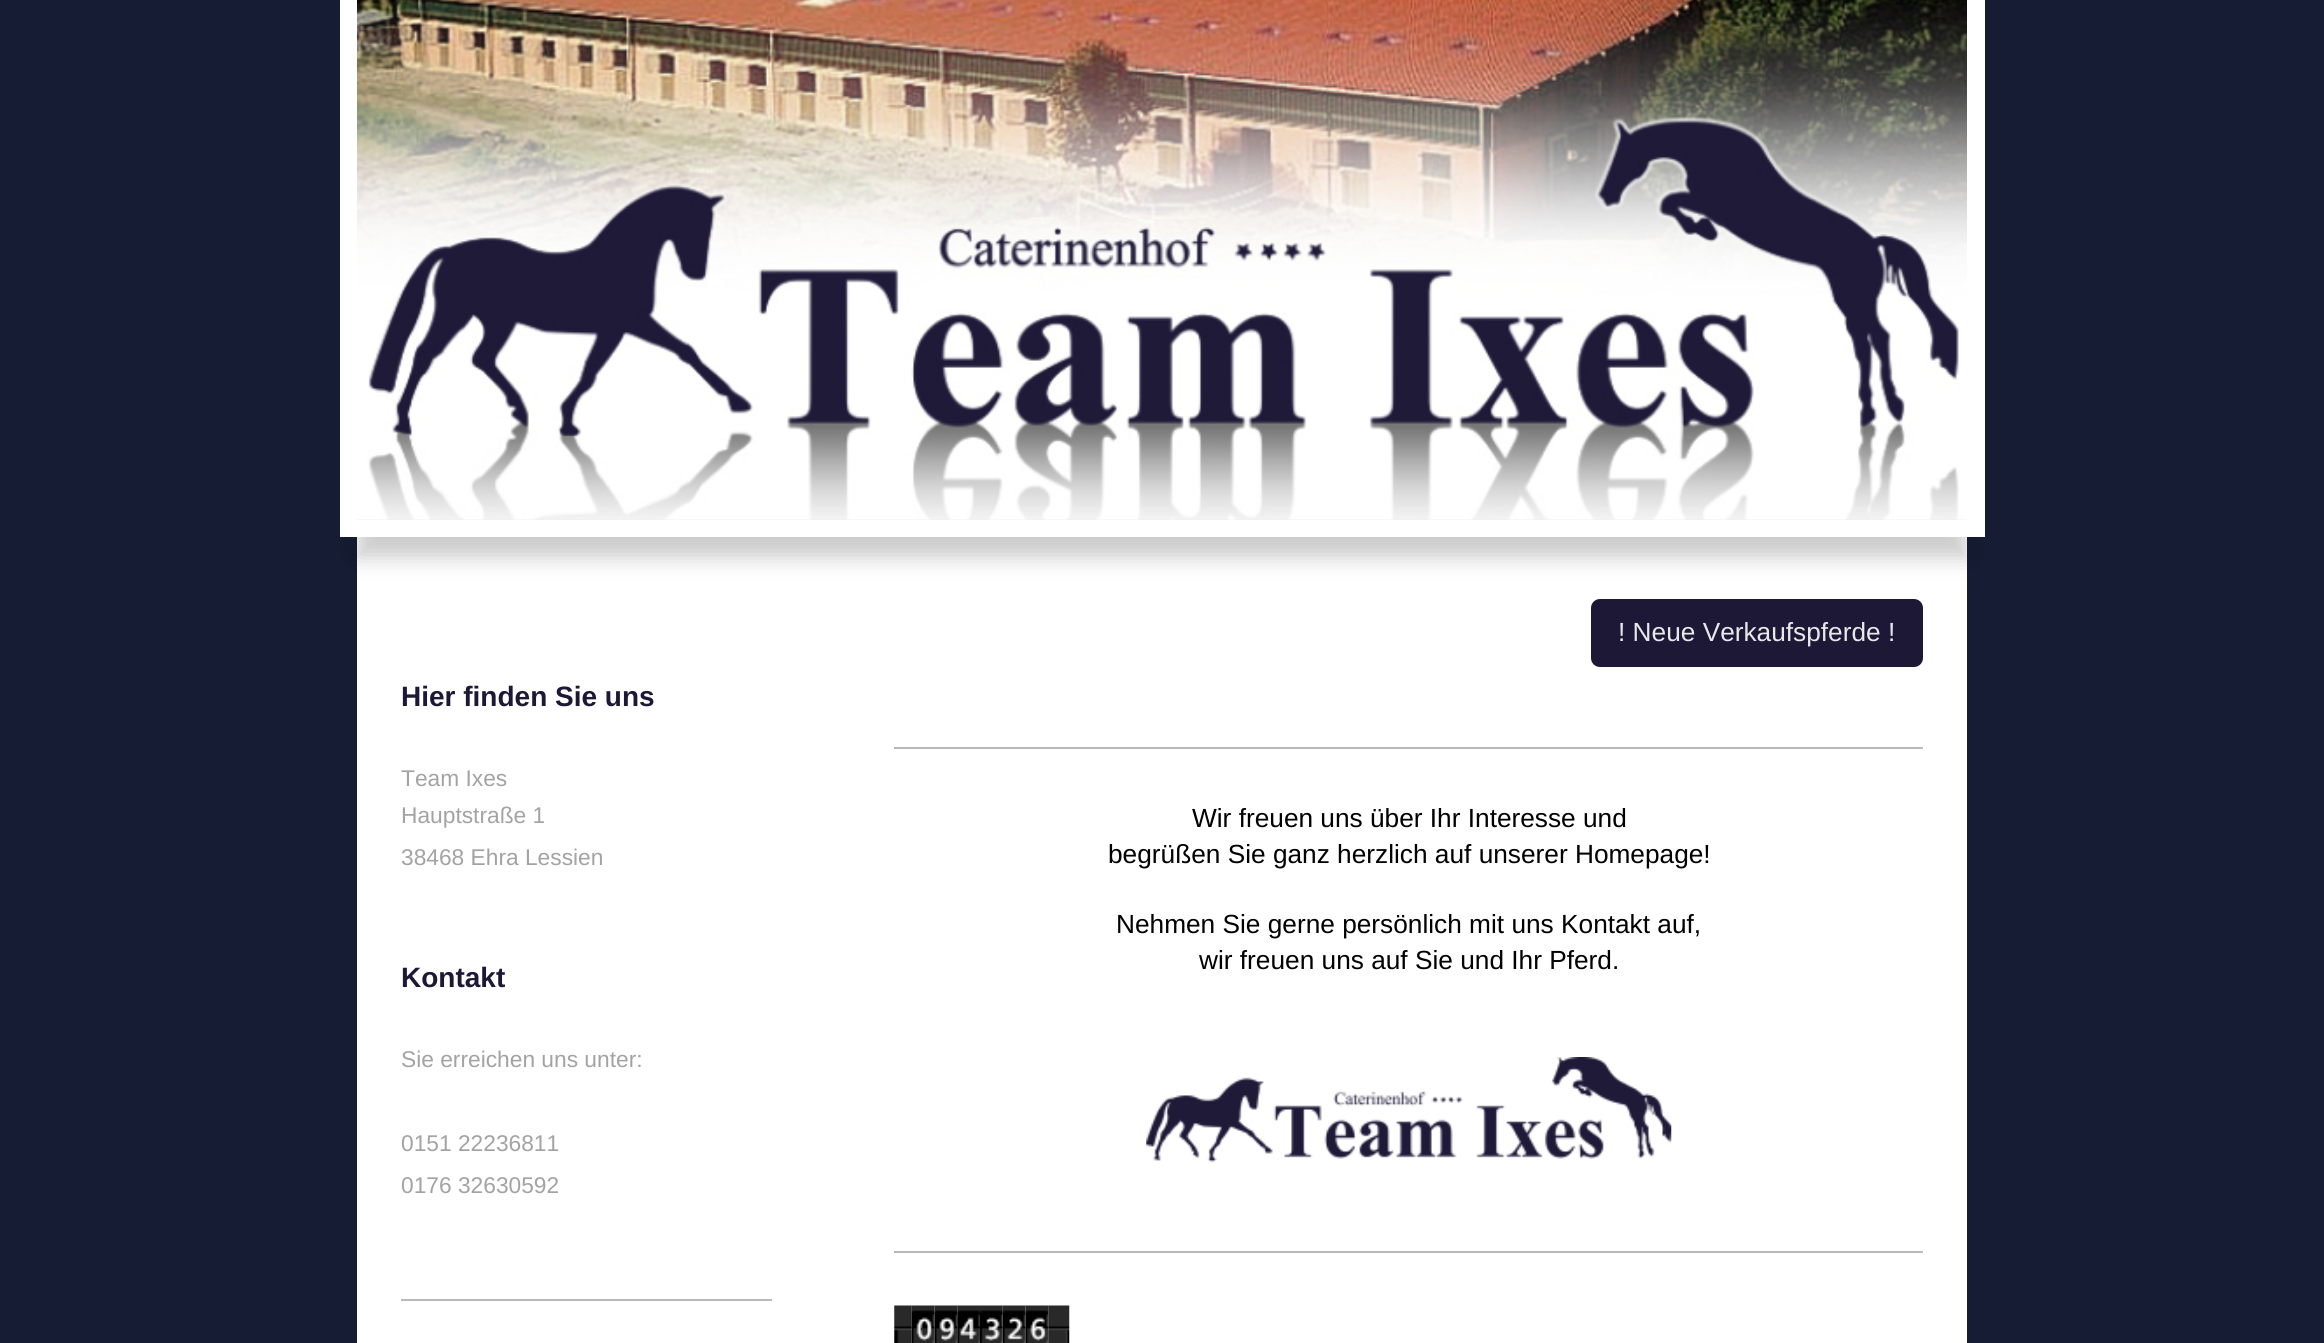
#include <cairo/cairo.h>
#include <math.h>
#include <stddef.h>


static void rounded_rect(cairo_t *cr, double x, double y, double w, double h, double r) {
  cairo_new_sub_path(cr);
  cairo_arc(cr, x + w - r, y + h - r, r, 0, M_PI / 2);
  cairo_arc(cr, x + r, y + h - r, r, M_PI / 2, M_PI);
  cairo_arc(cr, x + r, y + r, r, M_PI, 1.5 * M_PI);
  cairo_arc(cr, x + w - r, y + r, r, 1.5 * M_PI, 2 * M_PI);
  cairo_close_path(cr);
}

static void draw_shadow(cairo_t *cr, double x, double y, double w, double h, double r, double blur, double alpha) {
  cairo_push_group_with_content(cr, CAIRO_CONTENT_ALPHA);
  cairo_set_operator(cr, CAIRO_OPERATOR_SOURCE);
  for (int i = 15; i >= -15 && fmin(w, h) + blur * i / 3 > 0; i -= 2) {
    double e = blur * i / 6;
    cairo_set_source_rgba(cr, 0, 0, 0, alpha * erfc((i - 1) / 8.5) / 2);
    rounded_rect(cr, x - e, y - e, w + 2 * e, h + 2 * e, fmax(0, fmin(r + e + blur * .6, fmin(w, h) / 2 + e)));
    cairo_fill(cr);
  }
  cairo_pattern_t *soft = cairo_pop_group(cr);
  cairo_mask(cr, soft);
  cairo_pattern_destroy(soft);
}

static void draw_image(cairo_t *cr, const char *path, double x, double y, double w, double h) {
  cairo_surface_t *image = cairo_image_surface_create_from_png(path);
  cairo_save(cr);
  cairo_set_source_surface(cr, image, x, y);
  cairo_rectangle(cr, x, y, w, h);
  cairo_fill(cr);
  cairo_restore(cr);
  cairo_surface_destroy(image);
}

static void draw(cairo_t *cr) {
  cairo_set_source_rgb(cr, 21 / 255.0, 28 / 255.0, 51 / 255.0);
  cairo_paint(cr);
  cairo_set_source_rgb(cr, 1, 1, 1);
  cairo_rectangle(cr, 357, 537, 1610, 806);
  cairo_fill(cr);
  cairo_set_source_rgb(cr, 0, 0, 0);
  draw_shadow(cr, 357, -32, 1610, 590, 0, 10.5, 0.2);
  cairo_rectangle(cr, 349, -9, 1627, 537);
  cairo_set_source_rgb(cr, 1, 1, 1);
  cairo_set_line_width(cr, 18);
  cairo_stroke(cr);
  cairo_set_source_rgb(cr, 238 / 255.0, 238 / 255.0, 238 / 255.0);
  cairo_rectangle(cr, 357, 519, 1610, 1);
  cairo_fill(cr);
  draw_image(cr, "images/1.png", 357, 0, 1610, 520);
  cairo_set_source_rgb(cr, 186 / 255.0, 186 / 255.0, 186 / 255.0);
  cairo_rectangle(cr, 401, 1299, 371, 2);
  cairo_fill(cr);
  cairo_set_source_rgb(cr, 29 / 255.0, 24 / 255.0, 54 / 255.0);
  rounded_rect(cr, 1592, 600, 330, 66, 8);
  cairo_fill_preserve(cr);
  cairo_set_line_width(cr, 2);
  cairo_stroke(cr);
  cairo_set_source_rgb(cr, 186 / 255.0, 186 / 255.0, 186 / 255.0);
  cairo_rectangle(cr, 894, 747, 1029, 2);
  cairo_fill(cr);
  draw_image(cr, "images/2.png", 1146, 1057, 526, 106);
  cairo_rectangle(cr, 894, 1251, 1029, 2);
  cairo_fill(cr);
  draw_image(cr, "images/3.png", 894, 1305, 18, 38);
  draw_image(cr, "images/4.png", 911, 1305, 24, 38);
  draw_image(cr, "images/5.png", 934, 1305, 24, 38);
  draw_image(cr, "images/6.png", 957, 1305, 23, 38);
  draw_image(cr, "images/7.png", 980, 1305, 23, 38);
  draw_image(cr, "images/8.png", 1002, 1305, 24, 38);
  draw_image(cr, "images/9.png", 1025, 1305, 24, 38);
  draw_image(cr, "images/10.png", 1048, 1305, 22, 38);
  cairo_select_font_face(cr, "Liberation Sans", CAIRO_FONT_SLANT_NORMAL, CAIRO_FONT_WEIGHT_BOLD);
  cairo_set_font_size(cr, 28);
  cairo_set_source_rgb(cr, 29 / 255.0, 24 / 255.0, 54 / 255.0);
  cairo_move_to(cr, 401, 706);
  cairo_show_text(cr, "Hier finden Sie uns");
  cairo_select_font_face(cr, "Liberation Sans", CAIRO_FONT_SLANT_NORMAL, CAIRO_FONT_WEIGHT_NORMAL);
  cairo_set_font_size(cr, 22.75);
  cairo_set_source_rgb(cr, 163 / 255.0, 163 / 255.0, 163 / 255.0);
  cairo_move_to(cr, 401, 786);
  cairo_show_text(cr, "Team Ixes");
  cairo_move_to(cr, 401, 823);
  cairo_show_text(cr, "Hauptstraße 1");
  cairo_move_to(cr, 401, 865);
  cairo_show_text(cr, "38468 Ehra Lessien");
  cairo_select_font_face(cr, "Liberation Sans", CAIRO_FONT_SLANT_NORMAL, CAIRO_FONT_WEIGHT_BOLD);
  cairo_set_font_size(cr, 28);
  cairo_set_source_rgb(cr, 29 / 255.0, 24 / 255.0, 54 / 255.0);
  cairo_move_to(cr, 401, 987);
  cairo_show_text(cr, "Kontakt");
  cairo_select_font_face(cr, "Liberation Sans", CAIRO_FONT_SLANT_NORMAL, CAIRO_FONT_WEIGHT_NORMAL);
  cairo_set_font_size(cr, 22.75);
  cairo_set_source_rgb(cr, 163 / 255.0, 163 / 255.0, 163 / 255.0);
  cairo_move_to(cr, 401, 1067);
  cairo_show_text(cr, "Sie erreichen uns unter:");
  cairo_move_to(cr, 401, 1151);
  cairo_show_text(cr, "0151 22236811");
  cairo_move_to(cr, 401, 1193);
  cairo_show_text(cr, "0176 32630592");
  cairo_set_font_size(cr, 26.25);
  cairo_set_source_rgb(cr, 232 / 255.0, 232 / 255.0, 235 / 255.0);
  cairo_move_to(cr, 1618, 641);
  cairo_show_text(cr, "! Neue Verkaufspferde !");
  cairo_set_source_rgb(cr, 0, 0, 0);
  cairo_move_to(cr, 1192, 827);
  cairo_show_text(cr, "Wir freuen uns über Ihr Interesse und");
  cairo_move_to(cr, 1108, 863);
  cairo_show_text(cr, "begrüßen Sie ganz herzlich auf unserer Homepage!");
  cairo_move_to(cr, 1116, 933);
  cairo_show_text(cr, "Nehmen Sie gerne persönlich mit uns Kontakt auf,");
  cairo_move_to(cr, 1199, 969);
  cairo_show_text(cr, "wir freuen uns auf Sie und Ihr Pferd.");
}

int main(void) {
  cairo_surface_t *surface = cairo_image_surface_create(CAIRO_FORMAT_RGB24, 2324, 1343);
  cairo_t *cr = cairo_create(surface);
  cairo_font_options_t *options = cairo_font_options_create();
  cairo_font_options_set_hint_metrics(options, CAIRO_HINT_METRICS_OFF);
  cairo_font_options_set_hint_style(options, CAIRO_HINT_STYLE_NONE);
  cairo_set_font_options(cr, options);
  cairo_set_miter_limit(cr, 4);
  draw(cr);
  cairo_surface_write_to_png(surface, "out.png");
  cairo_font_options_destroy(options);
  cairo_destroy(cr);
  cairo_surface_destroy(surface);
  return 0;
}
